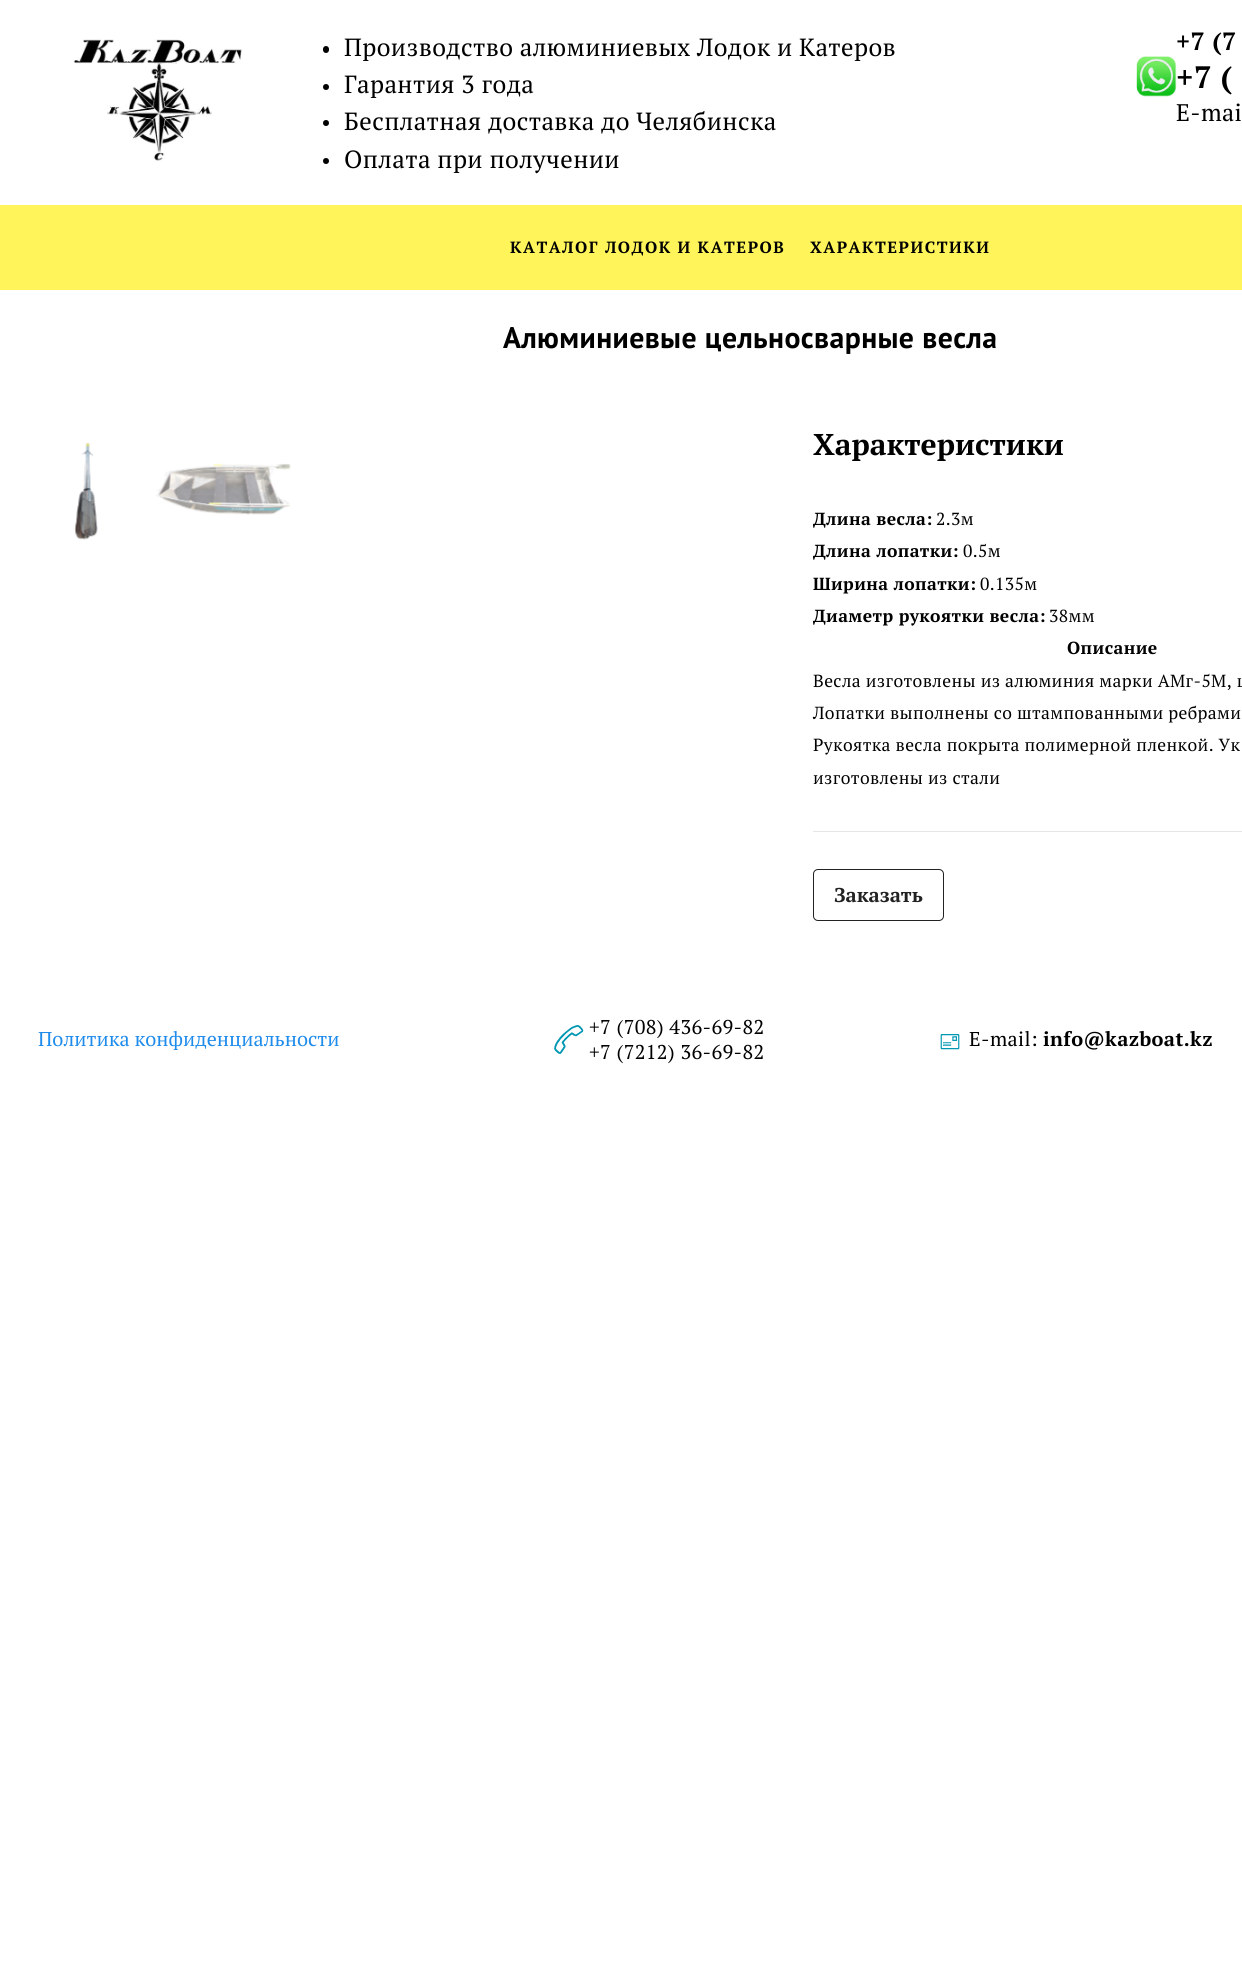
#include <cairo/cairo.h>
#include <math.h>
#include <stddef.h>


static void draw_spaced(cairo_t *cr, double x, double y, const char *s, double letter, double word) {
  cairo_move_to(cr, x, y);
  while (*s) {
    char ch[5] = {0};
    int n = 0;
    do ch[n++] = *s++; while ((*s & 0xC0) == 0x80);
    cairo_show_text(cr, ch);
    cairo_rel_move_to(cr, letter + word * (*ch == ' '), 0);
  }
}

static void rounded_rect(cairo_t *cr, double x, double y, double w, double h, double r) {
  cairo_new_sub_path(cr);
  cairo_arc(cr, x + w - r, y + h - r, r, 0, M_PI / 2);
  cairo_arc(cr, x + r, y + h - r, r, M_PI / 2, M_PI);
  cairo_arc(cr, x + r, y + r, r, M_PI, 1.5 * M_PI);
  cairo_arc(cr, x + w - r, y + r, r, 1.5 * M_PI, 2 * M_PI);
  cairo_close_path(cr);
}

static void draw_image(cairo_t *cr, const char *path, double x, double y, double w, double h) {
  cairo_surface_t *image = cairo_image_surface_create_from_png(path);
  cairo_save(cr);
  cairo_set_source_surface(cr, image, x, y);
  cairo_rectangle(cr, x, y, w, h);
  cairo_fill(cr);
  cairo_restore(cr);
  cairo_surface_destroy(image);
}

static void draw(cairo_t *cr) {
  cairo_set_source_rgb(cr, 1, 1, 1);
  cairo_paint(cr);
  draw_image(cr, "images/1.png", 73, 39, 169, 122);
  cairo_set_source_rgb(cr, 0, 0, 0);
  rounded_rect(cr, 323, 46, 6, 7, 3);
  cairo_fill(cr);
  cairo_arc(cr, 326, 87, 3, 0, 2 * M_PI);
  cairo_fill(cr);
  cairo_arc(cr, 326, 123, 3, 0, 2 * M_PI);
  cairo_fill(cr);
  cairo_arc(cr, 326, 161, 3, 0, 2 * M_PI);
  cairo_fill(cr);
  draw_image(cr, "images/2.png", 1136, 56, 41, 41);
  cairo_set_source_rgb(cr, 1, 245 / 255.0, 90 / 255.0);
  cairo_rectangle(cr, 0, 205, 1242, 85);
  cairo_fill(cr);
  draw_image(cr, "images/3.png", 74, 442, 24, 98);
  draw_image(cr, "images/4.png", 156, 463, 135, 52);
  cairo_set_source_rgb(cr, 230 / 255.0, 230 / 255.0, 230 / 255.0);
  cairo_rectangle(cr, 813, 831, 429, 1);
  cairo_fill(cr);
  rounded_rect(cr, 813.5, 869.5, 130, 51, 4.5);
  cairo_set_source_rgb(cr, 34 / 255.0, 34 / 255.0, 34 / 255.0);
  cairo_set_line_width(cr, 1);
  cairo_stroke(cr);
  draw_image(cr, "images/5.png", 554, 1025, 30, 29);
  draw_image(cr, "images/6.png", 940, 1034, 20, 16);
  cairo_select_font_face(cr, "PT Serif", CAIRO_FONT_SLANT_NORMAL, CAIRO_FONT_WEIGHT_NORMAL);
  cairo_set_font_size(cr, 24.85);
  cairo_set_source_rgb(cr, 0, 0, 0);
  draw_spaced(cr, 344, 56, "Производство алюминиевых Лодок и Катеров", 0.4, 0);
  draw_spaced(cr, 344, 93, "Гарантия 3 года", 0.4, 0);
  draw_spaced(cr, 344, 130, "Бесплатная доставка до Челябинска", 0.4, 0);
  draw_spaced(cr, 344, 168, "Оплата при получении", 0.4, 0);
  cairo_select_font_face(cr, "PT Serif", CAIRO_FONT_SLANT_NORMAL, CAIRO_FONT_WEIGHT_BOLD);
  cairo_set_font_size(cr, 25);
  draw_spaced(cr, 1176, 50, "+7 (7", 0.4, 0);
  cairo_set_font_size(cr, 31);
  draw_spaced(cr, 1176, 88, "+7 (", 0.4, 0);
  cairo_select_font_face(cr, "PT Serif", CAIRO_FONT_SLANT_NORMAL, CAIRO_FONT_WEIGHT_NORMAL);
  cairo_set_font_size(cr, 24);
  draw_spaced(cr, 1176, 121, "E-mai", 0.4, 0);
  cairo_select_font_face(cr, "PT Serif", CAIRO_FONT_SLANT_NORMAL, CAIRO_FONT_WEIGHT_BOLD);
  cairo_set_font_size(cr, 16.25);
  draw_spaced(cr, 510, 253, "КАТАЛОГ ЛОДОК И КАТЕРОВ", 1.5, 0);
  draw_spaced(cr, 810, 253, "ХАРАКТЕРИСТИКИ", 1.5, 0);
  cairo_select_font_face(cr, "PT Sans", CAIRO_FONT_SLANT_NORMAL, CAIRO_FONT_WEIGHT_BOLD);
  cairo_set_font_size(cr, 29.75);
  draw_spaced(cr, 503, 348, "Алюминиевые цельносварные весла", 0.4, 0);
  cairo_select_font_face(cr, "PT Serif", CAIRO_FONT_SLANT_NORMAL, CAIRO_FONT_WEIGHT_BOLD);
  cairo_set_font_size(cr, 30);
  cairo_move_to(cr, 813, 455);
  cairo_show_text(cr, "Характеристики");
  cairo_set_font_size(cr, 17.5);
  draw_spaced(cr, 813, 525, "Длина весла:", 0.4, 0);
  cairo_select_font_face(cr, "PT Serif", CAIRO_FONT_SLANT_NORMAL, CAIRO_FONT_WEIGHT_NORMAL);
  draw_spaced(cr, 936, 525, "2.3м", 0.4, 0);
  cairo_select_font_face(cr, "PT Serif", CAIRO_FONT_SLANT_NORMAL, CAIRO_FONT_WEIGHT_BOLD);
  draw_spaced(cr, 813, 557, "Длина лопатки:", 0.4, 0);
  cairo_select_font_face(cr, "PT Serif", CAIRO_FONT_SLANT_NORMAL, CAIRO_FONT_WEIGHT_NORMAL);
  draw_spaced(cr, 963, 557, "0.5м", 0.4, 0);
  cairo_select_font_face(cr, "PT Serif", CAIRO_FONT_SLANT_NORMAL, CAIRO_FONT_WEIGHT_BOLD);
  draw_spaced(cr, 813, 590, "Ширина лопатки:", 0.4, 0);
  cairo_select_font_face(cr, "PT Serif", CAIRO_FONT_SLANT_NORMAL, CAIRO_FONT_WEIGHT_NORMAL);
  draw_spaced(cr, 980, 590, "0.135м", 0.4, 0);
  cairo_select_font_face(cr, "PT Serif", CAIRO_FONT_SLANT_NORMAL, CAIRO_FONT_WEIGHT_BOLD);
  draw_spaced(cr, 813, 622, "Диаметр рукоятки весла:", 0.4, 0);
  cairo_select_font_face(cr, "PT Serif", CAIRO_FONT_SLANT_NORMAL, CAIRO_FONT_WEIGHT_NORMAL);
  draw_spaced(cr, 1049, 622, "38мм", 0.4, 0);
  cairo_select_font_face(cr, "PT Serif", CAIRO_FONT_SLANT_NORMAL, CAIRO_FONT_WEIGHT_BOLD);
  draw_spaced(cr, 1067, 654, "Описание", 0.4, 0);
  cairo_select_font_face(cr, "PT Serif", CAIRO_FONT_SLANT_NORMAL, CAIRO_FONT_WEIGHT_NORMAL);
  draw_spaced(cr, 813, 687, "Весла изготовлены из алюминия марки АМг-5М, ц", 0.4, 0);
  draw_spaced(cr, 813, 719, "Лопатки выполнены со штампованными ребрами", 0.4, 0);
  draw_spaced(cr, 813, 751, "Рукоятка весла покрыта полимерной пленкой. Ук", 0.4, 0);
  draw_spaced(cr, 813, 784, "изготовлены из стали", 0.4, 0);
  cairo_select_font_face(cr, "PT Serif", CAIRO_FONT_SLANT_NORMAL, CAIRO_FONT_WEIGHT_BOLD);
  cairo_set_font_size(cr, 20);
  cairo_set_source_rgb(cr, 34 / 255.0, 34 / 255.0, 34 / 255.0);
  cairo_move_to(cr, 834, 902);
  cairo_show_text(cr, "Заказать");
  cairo_select_font_face(cr, "PT Serif", CAIRO_FONT_SLANT_NORMAL, CAIRO_FONT_WEIGHT_NORMAL);
  cairo_set_source_rgb(cr, 31 / 255.0, 140 / 255.0, 235 / 255.0);
  cairo_move_to(cr, 38, 1046);
  cairo_show_text(cr, "Политика конфиденциальности");
  cairo_set_source_rgb(cr, 0, 0, 0);
  draw_spaced(cr, 589, 1034, "+7 (708) 436-69-82", 0.4, 0);
  draw_spaced(cr, 589, 1059, "+7 (7212) 36-69-82", 0.4, 0);
  draw_spaced(cr, 969, 1046, "E-mail:", 0.4, 0);
  cairo_select_font_face(cr, "PT Serif", CAIRO_FONT_SLANT_NORMAL, CAIRO_FONT_WEIGHT_BOLD);
  draw_spaced(cr, 1043, 1046, "info@kazboat.kz", 0.4, 0);
}

int main(void) {
  cairo_surface_t *surface = cairo_image_surface_create(CAIRO_FORMAT_RGB24, 1242, 1978);
  cairo_t *cr = cairo_create(surface);
  cairo_font_options_t *options = cairo_font_options_create();
  cairo_font_options_set_hint_metrics(options, CAIRO_HINT_METRICS_OFF);
  cairo_font_options_set_hint_style(options, CAIRO_HINT_STYLE_NONE);
  cairo_set_font_options(cr, options);
  cairo_set_miter_limit(cr, 4);
  draw(cr);
  cairo_surface_write_to_png(surface, "out.png");
  cairo_font_options_destroy(options);
  cairo_destroy(cr);
  cairo_surface_destroy(surface);
  return 0;
}
